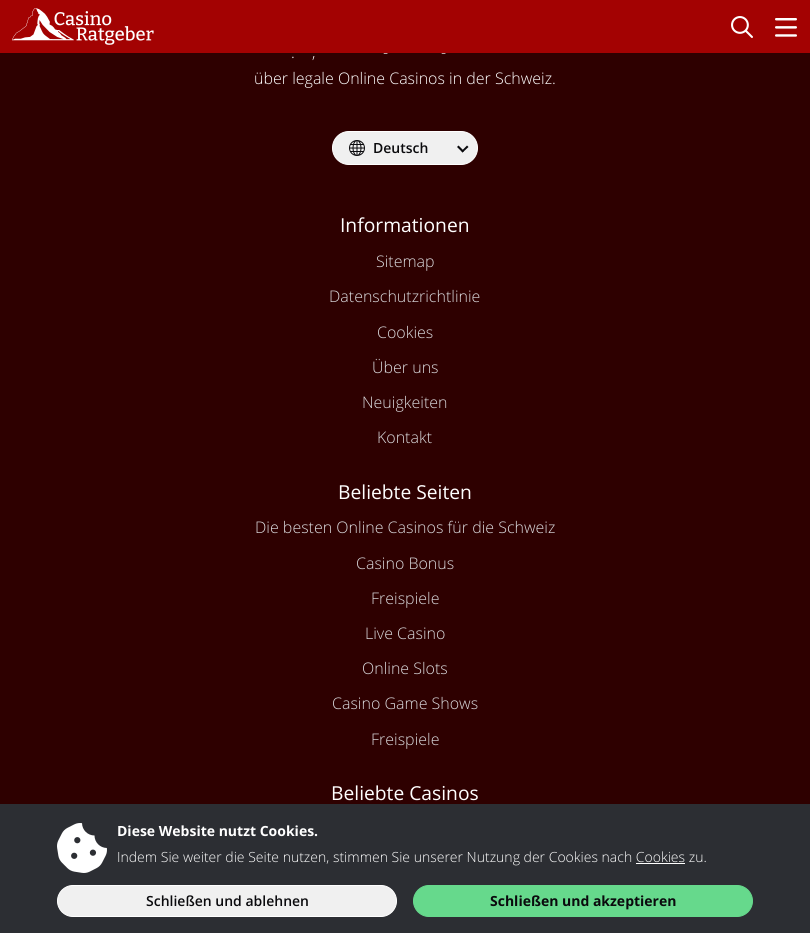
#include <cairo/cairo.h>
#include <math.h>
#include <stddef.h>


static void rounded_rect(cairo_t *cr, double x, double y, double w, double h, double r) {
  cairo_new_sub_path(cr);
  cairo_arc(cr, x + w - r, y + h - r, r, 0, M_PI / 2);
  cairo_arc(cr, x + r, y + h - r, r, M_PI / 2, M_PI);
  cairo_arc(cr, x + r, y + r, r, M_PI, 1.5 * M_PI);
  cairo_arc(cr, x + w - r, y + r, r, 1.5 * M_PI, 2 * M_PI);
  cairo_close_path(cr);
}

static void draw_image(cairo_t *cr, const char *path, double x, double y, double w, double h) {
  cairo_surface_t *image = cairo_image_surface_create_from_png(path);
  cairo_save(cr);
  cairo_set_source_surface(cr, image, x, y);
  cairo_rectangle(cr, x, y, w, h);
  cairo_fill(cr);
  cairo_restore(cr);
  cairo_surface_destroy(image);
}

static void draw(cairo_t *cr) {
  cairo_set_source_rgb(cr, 46 / 255.0, 0, 0);
  cairo_paint(cr);
  cairo_set_source_rgb(cr, 163 / 255.0, 2 / 255.0, 2 / 255.0);
  cairo_rectangle(cr, 0, 0, 810, 53);
  cairo_fill(cr);
  draw_image(cr, "images/1.png", 12, 8, 142, 37);
  draw_image(cr, "images/2.png", 731, 16, 22, 22);
  draw_image(cr, "images/3.png", 775, 18, 22, 19);
  cairo_set_source_rgb(cr, 240 / 255.0, 240 / 255.0, 240 / 255.0);
  rounded_rect(cr, 332.5, 131.5, 145, 33, 16.5);
  cairo_fill_preserve(cr);
  cairo_set_source_rgb(cr, 1, 1, 1);
  cairo_set_line_width(cr, 1);
  cairo_stroke(cr);
  draw_image(cr, "images/4.png", 349, 140, 16, 16);
  cairo_set_source_rgb(cr, 10 / 255.0, 10 / 255.0, 13 / 255.0);
  cairo_new_path(cr);
  cairo_move_to(cr, 467, 145.5);
  cairo_line_to(cr, 468.5, 147);
  cairo_line_to(cr, 462.5, 152.5);
  cairo_line_to(cr, 461.5, 151);
  cairo_close_path(cr);
  cairo_fill(cr);
  cairo_new_path(cr);
  cairo_move_to(cr, 458.5, 145.5);
  cairo_line_to(cr, 464, 151);
  cairo_line_to(cr, 462.5, 152.5);
  cairo_line_to(cr, 457, 147);
  cairo_close_path(cr);
  cairo_fill(cr);
  cairo_set_source_rgb(cr, 44 / 255.0, 46 / 255.0, 51 / 255.0);
  cairo_rectangle(cr, 0, 804, 810, 129);
  cairo_fill(cr);
  draw_image(cr, "images/5.png", 57, 823, 50, 50);
  cairo_set_source_rgb(cr, 1, 1, 1);
  cairo_rectangle(cr, 636, 863, 49, 1);
  cairo_fill(cr);
  cairo_set_source_rgb(cr, 240 / 255.0, 240 / 255.0, 240 / 255.0);
  rounded_rect(cr, 57.5, 885.5, 339, 31, 15.5);
  cairo_fill_preserve(cr);
  cairo_set_source_rgb(cr, 1, 1, 1);
  cairo_stroke(cr);
  cairo_set_source_rgb(cr, 102 / 255.0, 217 / 255.0, 140 / 255.0);
  rounded_rect(cr, 413.5, 885.5, 339, 31, 15.5);
  cairo_fill_preserve(cr);
  cairo_stroke(cr);
  cairo_select_font_face(cr, "Open Sans Light", CAIRO_FONT_SLANT_NORMAL, CAIRO_FONT_WEIGHT_NORMAL);
  cairo_set_font_size(cr, 16);
  cairo_set_source_rgb(cr, 1, 1, 1);
  cairo_move_to(cr, 383, 58);
  cairo_show_text(cr, "-");
  cairo_move_to(cr, 441, 58);
  cairo_show_text(cr, "-");
  cairo_move_to(cr, 291, 58);
  cairo_show_text(cr, ".");
  cairo_move_to(cr, 312, 58);
  cairo_show_text(cr, ",");
  cairo_move_to(cr, 254, 84);
  cairo_show_text(cr, "über legale Online Casinos in der Schweiz.");
  cairo_select_font_face(cr, "Open Sans SemiBold", CAIRO_FONT_SLANT_NORMAL, CAIRO_FONT_WEIGHT_NORMAL);
  cairo_set_font_size(cr, 14);
  cairo_set_source_rgb(cr, 10 / 255.0, 10 / 255.0, 13 / 255.0);
  cairo_move_to(cr, 373, 153);
  cairo_show_text(cr, "Deutsch");
  cairo_select_font_face(cr, "Open Sans", CAIRO_FONT_SLANT_NORMAL, CAIRO_FONT_WEIGHT_NORMAL);
  cairo_set_font_size(cr, 19.25);
  cairo_set_source_rgb(cr, 1, 1, 1);
  cairo_move_to(cr, 340, 232);
  cairo_show_text(cr, "Informationen");
  cairo_select_font_face(cr, "Open Sans Light", CAIRO_FONT_SLANT_NORMAL, CAIRO_FONT_WEIGHT_NORMAL);
  cairo_set_font_size(cr, 16);
  cairo_set_source_rgb(cr, 218 / 255.0, 218 / 255.0, 221 / 255.0);
  cairo_move_to(cr, 376, 267);
  cairo_show_text(cr, "Sitemap");
  cairo_move_to(cr, 329, 302);
  cairo_show_text(cr, "Datenschutzrichtlinie");
  cairo_move_to(cr, 377, 338);
  cairo_show_text(cr, "Cookies");
  cairo_move_to(cr, 372, 373);
  cairo_show_text(cr, "Über uns");
  cairo_move_to(cr, 362, 408);
  cairo_show_text(cr, "Neuigkeiten");
  cairo_move_to(cr, 377, 443);
  cairo_show_text(cr, "Kontakt");
  cairo_select_font_face(cr, "Open Sans", CAIRO_FONT_SLANT_NORMAL, CAIRO_FONT_WEIGHT_NORMAL);
  cairo_set_font_size(cr, 19.25);
  cairo_set_source_rgb(cr, 1, 1, 1);
  cairo_move_to(cr, 338, 499);
  cairo_show_text(cr, "Beliebte Seiten");
  cairo_select_font_face(cr, "Open Sans Light", CAIRO_FONT_SLANT_NORMAL, CAIRO_FONT_WEIGHT_NORMAL);
  cairo_set_font_size(cr, 16);
  cairo_set_source_rgb(cr, 218 / 255.0, 218 / 255.0, 221 / 255.0);
  cairo_move_to(cr, 255, 533);
  cairo_show_text(cr, "Die besten Online Casinos für die Schweiz");
  cairo_move_to(cr, 356, 569);
  cairo_show_text(cr, "Casino Bonus");
  cairo_move_to(cr, 371, 604);
  cairo_show_text(cr, "Freispiele");
  cairo_move_to(cr, 365, 639);
  cairo_show_text(cr, "Live Casino");
  cairo_move_to(cr, 362, 674);
  cairo_show_text(cr, "Online Slots");
  cairo_move_to(cr, 332, 709);
  cairo_show_text(cr, "Casino Game Shows");
  cairo_move_to(cr, 371, 745);
  cairo_show_text(cr, "Freispiele");
  cairo_select_font_face(cr, "Open Sans", CAIRO_FONT_SLANT_NORMAL, CAIRO_FONT_WEIGHT_NORMAL);
  cairo_set_font_size(cr, 19.25);
  cairo_set_source_rgb(cr, 1, 1, 1);
  cairo_move_to(cr, 331, 800);
  cairo_show_text(cr, "Beliebte Casinos");
  cairo_select_font_face(cr, "Open Sans", CAIRO_FONT_SLANT_NORMAL, CAIRO_FONT_WEIGHT_BOLD);
  cairo_set_font_size(cr, 14);
  cairo_move_to(cr, 117, 836);
  cairo_show_text(cr, "Diese Website nutzt Cookies.");
  cairo_select_font_face(cr, "Open Sans Light", CAIRO_FONT_SLANT_NORMAL, CAIRO_FONT_WEIGHT_NORMAL);
  cairo_move_to(cr, 117, 862);
  cairo_show_text(cr, "Indem Sie weiter die Seite nutzen, stimmen Sie unserer Nutzung der Cookies nach Cookies zu.");
  cairo_select_font_face(cr, "Open Sans SemiBold", CAIRO_FONT_SLANT_NORMAL, CAIRO_FONT_WEIGHT_NORMAL);
  cairo_set_source_rgb(cr, 10 / 255.0, 10 / 255.0, 13 / 255.0);
  cairo_move_to(cr, 146, 906);
  cairo_show_text(cr, "Schließen und ablehnen");
  cairo_select_font_face(cr, "Open Sans", CAIRO_FONT_SLANT_NORMAL, CAIRO_FONT_WEIGHT_BOLD);
  cairo_move_to(cr, 490, 906);
  cairo_show_text(cr, "Schließen und akzeptieren");
}

int main(void) {
  cairo_surface_t *surface = cairo_image_surface_create(CAIRO_FORMAT_RGB24, 810, 933);
  cairo_t *cr = cairo_create(surface);
  cairo_font_options_t *options = cairo_font_options_create();
  cairo_font_options_set_hint_metrics(options, CAIRO_HINT_METRICS_OFF);
  cairo_font_options_set_hint_style(options, CAIRO_HINT_STYLE_NONE);
  cairo_set_font_options(cr, options);
  cairo_set_miter_limit(cr, 4);
  draw(cr);
  cairo_surface_write_to_png(surface, "out.png");
  cairo_font_options_destroy(options);
  cairo_destroy(cr);
  cairo_surface_destroy(surface);
  return 0;
}
